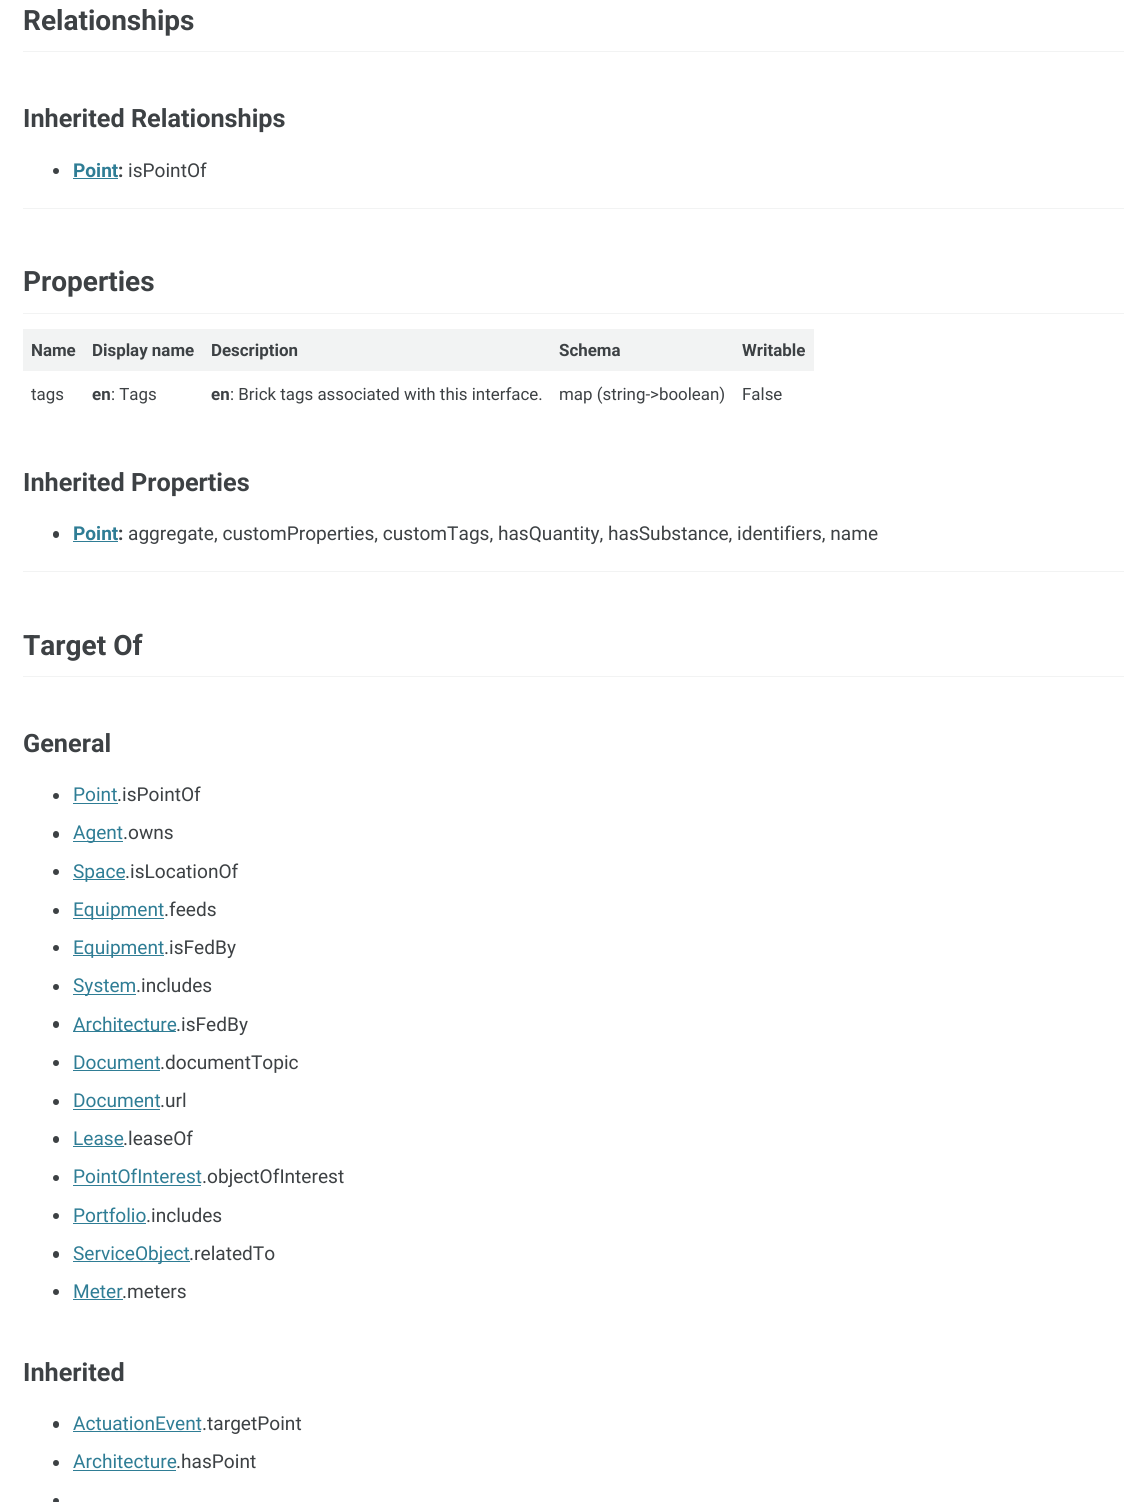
#include <cairo/cairo.h>
#include <math.h>
#include <stddef.h>


static void rounded_rect(cairo_t *cr, double x, double y, double w, double h, double r) {
  cairo_new_sub_path(cr);
  cairo_arc(cr, x + w - r, y + h - r, r, 0, M_PI / 2);
  cairo_arc(cr, x + r, y + h - r, r, M_PI / 2, M_PI);
  cairo_arc(cr, x + r, y + r, r, M_PI, 1.5 * M_PI);
  cairo_arc(cr, x + w - r, y + r, r, 1.5 * M_PI, 2 * M_PI);
  cairo_close_path(cr);
}

static void draw(cairo_t *cr) {
  cairo_set_source_rgb(cr, 1, 1, 1);
  cairo_paint(cr);
  cairo_set_source_rgb(cr, 242 / 255.0, 243 / 255.0, 243 / 255.0);
  cairo_rectangle(cr, 23, 51, 1101, 1);
  cairo_fill(cr);
  cairo_set_source_rgb(cr, 61 / 255.0, 65 / 255.0, 68 / 255.0);
  cairo_arc(cr, 56, 171, 3, 0, 2 * M_PI);
  cairo_fill(cr);
  cairo_set_source_rgb(cr, 47 / 255.0, 125 / 255.0, 149 / 255.0);
  cairo_rectangle(cr, 73, 178, 45, 1);
  cairo_fill(cr);
  cairo_set_source_rgb(cr, 242 / 255.0, 243 / 255.0, 243 / 255.0);
  cairo_rectangle(cr, 23, 208, 1101, 1);
  cairo_fill(cr);
  cairo_rectangle(cr, 23, 313, 1101, 1);
  cairo_fill(cr);
  cairo_rectangle(cr, 23, 329, 791, 42);
  cairo_fill(cr);
  cairo_set_source_rgb(cr, 61 / 255.0, 65 / 255.0, 68 / 255.0);
  rounded_rect(cr, 53, 531, 6, 7, 3);
  cairo_fill(cr);
  cairo_set_source_rgb(cr, 47 / 255.0, 125 / 255.0, 149 / 255.0);
  cairo_rectangle(cr, 73, 541, 45, 1);
  cairo_fill(cr);
  cairo_set_source_rgb(cr, 242 / 255.0, 243 / 255.0, 243 / 255.0);
  cairo_rectangle(cr, 23, 571, 1101, 1);
  cairo_fill(cr);
  cairo_rectangle(cr, 23, 676, 1101, 1);
  cairo_fill(cr);
  cairo_set_source_rgb(cr, 61 / 255.0, 65 / 255.0, 68 / 255.0);
  cairo_arc(cr, 56, 796, 3, 0, 2 * M_PI);
  cairo_fill(cr);
  cairo_set_source_rgb(cr, 47 / 255.0, 125 / 255.0, 149 / 255.0);
  cairo_rectangle(cr, 73, 803, 45, 1);
  cairo_fill(cr);
  cairo_set_source_rgb(cr, 61 / 255.0, 65 / 255.0, 68 / 255.0);
  rounded_rect(cr, 53, 831, 6, 7, 3);
  cairo_fill(cr);
  cairo_set_source_rgb(cr, 47 / 255.0, 125 / 255.0, 149 / 255.0);
  cairo_rectangle(cr, 73, 841, 50, 1);
  cairo_fill(cr);
  cairo_set_source_rgb(cr, 61 / 255.0, 65 / 255.0, 68 / 255.0);
  cairo_arc(cr, 56, 872, 3, 0, 2 * M_PI);
  cairo_fill(cr);
  cairo_set_source_rgb(cr, 47 / 255.0, 125 / 255.0, 149 / 255.0);
  cairo_rectangle(cr, 73, 879, 52, 1);
  cairo_fill(cr);
  cairo_set_source_rgb(cr, 61 / 255.0, 65 / 255.0, 68 / 255.0);
  cairo_arc(cr, 56, 911, 3, 0, 2 * M_PI);
  cairo_fill(cr);
  cairo_set_source_rgb(cr, 47 / 255.0, 125 / 255.0, 149 / 255.0);
  cairo_rectangle(cr, 73, 918, 91, 1);
  cairo_fill(cr);
  cairo_set_source_rgb(cr, 61 / 255.0, 65 / 255.0, 68 / 255.0);
  cairo_arc(cr, 56, 948, 3, 0, 2 * M_PI);
  cairo_fill(cr);
  cairo_set_source_rgb(cr, 47 / 255.0, 125 / 255.0, 149 / 255.0);
  cairo_rectangle(cr, 73, 955, 91, 1);
  cairo_fill(cr);
  cairo_set_source_rgb(cr, 61 / 255.0, 65 / 255.0, 68 / 255.0);
  cairo_arc(cr, 56, 987, 3, 0, 2 * M_PI);
  cairo_fill(cr);
  cairo_set_source_rgb(cr, 47 / 255.0, 125 / 255.0, 149 / 255.0);
  cairo_rectangle(cr, 73, 994, 63, 1);
  cairo_fill(cr);
  cairo_set_source_rgb(cr, 61 / 255.0, 65 / 255.0, 68 / 255.0);
  rounded_rect(cr, 53, 1021, 6, 7, 3);
  cairo_fill(cr);
  cairo_set_source_rgb(cr, 47 / 255.0, 125 / 255.0, 149 / 255.0);
  cairo_rectangle(cr, 73, 1031, 103, 1);
  cairo_fill(cr);
  cairo_set_source_rgb(cr, 61 / 255.0, 65 / 255.0, 68 / 255.0);
  cairo_arc(cr, 56, 1063, 3, 0, 2 * M_PI);
  cairo_fill(cr);
  cairo_set_source_rgb(cr, 47 / 255.0, 125 / 255.0, 149 / 255.0);
  cairo_rectangle(cr, 73, 1070, 87, 1);
  cairo_fill(cr);
  cairo_set_source_rgb(cr, 61 / 255.0, 65 / 255.0, 68 / 255.0);
  cairo_arc(cr, 56, 1102, 3, 0, 2 * M_PI);
  cairo_fill(cr);
  cairo_set_source_rgb(cr, 47 / 255.0, 125 / 255.0, 149 / 255.0);
  cairo_rectangle(cr, 73, 1109, 87, 1);
  cairo_fill(cr);
  cairo_set_source_rgb(cr, 61 / 255.0, 65 / 255.0, 68 / 255.0);
  rounded_rect(cr, 53, 1136, 6, 7, 3);
  cairo_fill(cr);
  cairo_set_source_rgb(cr, 47 / 255.0, 125 / 255.0, 149 / 255.0);
  cairo_rectangle(cr, 73, 1146, 51, 1);
  cairo_fill(cr);
  cairo_set_source_rgb(cr, 61 / 255.0, 65 / 255.0, 68 / 255.0);
  cairo_arc(cr, 56, 1178, 3, 0, 2 * M_PI);
  cairo_fill(cr);
  cairo_set_source_rgb(cr, 47 / 255.0, 125 / 255.0, 149 / 255.0);
  cairo_rectangle(cr, 73, 1185, 128, 1);
  cairo_fill(cr);
  cairo_set_source_rgb(cr, 61 / 255.0, 65 / 255.0, 68 / 255.0);
  cairo_arc(cr, 56, 1216, 3, 0, 2 * M_PI);
  cairo_fill(cr);
  cairo_set_source_rgb(cr, 47 / 255.0, 125 / 255.0, 149 / 255.0);
  cairo_rectangle(cr, 73, 1223, 73, 1);
  cairo_fill(cr);
  cairo_set_source_rgb(cr, 61 / 255.0, 65 / 255.0, 68 / 255.0);
  rounded_rect(cr, 53, 1251, 6, 7, 3);
  cairo_fill(cr);
  cairo_set_source_rgb(cr, 47 / 255.0, 125 / 255.0, 149 / 255.0);
  cairo_rectangle(cr, 73, 1261, 117, 1);
  cairo_fill(cr);
  cairo_set_source_rgb(cr, 61 / 255.0, 65 / 255.0, 68 / 255.0);
  cairo_arc(cr, 56, 1292, 3, 0, 2 * M_PI);
  cairo_fill(cr);
  cairo_set_source_rgb(cr, 47 / 255.0, 125 / 255.0, 149 / 255.0);
  cairo_rectangle(cr, 73, 1299, 50, 1);
  cairo_fill(cr);
  cairo_set_source_rgb(cr, 61 / 255.0, 65 / 255.0, 68 / 255.0);
  rounded_rect(cr, 53, 1421, 6, 7, 3);
  cairo_fill(cr);
  cairo_set_source_rgb(cr, 47 / 255.0, 125 / 255.0, 149 / 255.0);
  cairo_rectangle(cr, 73, 1431, 128, 1);
  cairo_fill(cr);
  cairo_set_source_rgb(cr, 61 / 255.0, 65 / 255.0, 68 / 255.0);
  cairo_arc(cr, 56, 1463, 3, 0, 2 * M_PI);
  cairo_fill(cr);
  cairo_set_source_rgb(cr, 47 / 255.0, 125 / 255.0, 149 / 255.0);
  cairo_rectangle(cr, 73, 1470, 103, 1);
  cairo_fill(cr);
  cairo_set_source_rgb(cr, 61 / 255.0, 65 / 255.0, 68 / 255.0);
  cairo_arc(cr, 56, 1501, 3, 0, 2 * M_PI);
  cairo_fill(cr);
  cairo_select_font_face(cr, "Roboto", CAIRO_FONT_SLANT_NORMAL, CAIRO_FONT_WEIGHT_BOLD);
  cairo_set_font_size(cr, 28);
  cairo_move_to(cr, 23, 30);
  cairo_show_text(cr, "Relationships");
  cairo_set_font_size(cr, 25.25);
  cairo_move_to(cr, 23, 127);
  cairo_show_text(cr, "Inherited Relationships");
  cairo_set_font_size(cr, 19.1);
  cairo_set_source_rgb(cr, 47 / 255.0, 125 / 255.0, 149 / 255.0);
  cairo_move_to(cr, 73, 177);
  cairo_show_text(cr, "Point");
  cairo_set_source_rgb(cr, 61 / 255.0, 65 / 255.0, 68 / 255.0);
  cairo_move_to(cr, 118, 177);
  cairo_show_text(cr, ":");
  cairo_select_font_face(cr, "Roboto", CAIRO_FONT_SLANT_NORMAL, CAIRO_FONT_WEIGHT_NORMAL);
  cairo_move_to(cr, 128, 177);
  cairo_show_text(cr, "isPointOf");
  cairo_select_font_face(cr, "Roboto", CAIRO_FONT_SLANT_NORMAL, CAIRO_FONT_WEIGHT_BOLD);
  cairo_set_font_size(cr, 28);
  cairo_move_to(cr, 23, 291);
  cairo_show_text(cr, "Properties");
  cairo_set_font_size(cr, 16.9);
  cairo_move_to(cr, 31, 356);
  cairo_show_text(cr, "Name");
  cairo_move_to(cr, 92, 356);
  cairo_show_text(cr, "Display name");
  cairo_move_to(cr, 211, 356);
  cairo_show_text(cr, "Description");
  cairo_move_to(cr, 559, 356);
  cairo_show_text(cr, "Schema");
  cairo_move_to(cr, 742, 356);
  cairo_show_text(cr, "Writable");
  cairo_select_font_face(cr, "Roboto", CAIRO_FONT_SLANT_NORMAL, CAIRO_FONT_WEIGHT_NORMAL);
  cairo_move_to(cr, 31, 400);
  cairo_show_text(cr, "tags");
  cairo_select_font_face(cr, "Roboto", CAIRO_FONT_SLANT_NORMAL, CAIRO_FONT_WEIGHT_BOLD);
  cairo_move_to(cr, 92, 400);
  cairo_show_text(cr, "en");
  cairo_select_font_face(cr, "Roboto", CAIRO_FONT_SLANT_NORMAL, CAIRO_FONT_WEIGHT_NORMAL);
  cairo_move_to(cr, 111, 400);
  cairo_show_text(cr, ": Tags");
  cairo_select_font_face(cr, "Roboto", CAIRO_FONT_SLANT_NORMAL, CAIRO_FONT_WEIGHT_BOLD);
  cairo_move_to(cr, 211, 400);
  cairo_show_text(cr, "en");
  cairo_select_font_face(cr, "Roboto", CAIRO_FONT_SLANT_NORMAL, CAIRO_FONT_WEIGHT_NORMAL);
  cairo_move_to(cr, 230, 400);
  cairo_show_text(cr, ": Brick tags associated with this interface.");
  cairo_move_to(cr, 559, 400);
  cairo_show_text(cr, "map (string->boolean)");
  cairo_move_to(cr, 742, 400);
  cairo_show_text(cr, "False");
  cairo_select_font_face(cr, "Roboto", CAIRO_FONT_SLANT_NORMAL, CAIRO_FONT_WEIGHT_BOLD);
  cairo_set_font_size(cr, 25.25);
  cairo_move_to(cr, 23, 491);
  cairo_show_text(cr, "Inherited Properties");
  cairo_set_font_size(cr, 19.1);
  cairo_set_source_rgb(cr, 47 / 255.0, 125 / 255.0, 149 / 255.0);
  cairo_move_to(cr, 73, 540);
  cairo_show_text(cr, "Point");
  cairo_set_source_rgb(cr, 61 / 255.0, 65 / 255.0, 68 / 255.0);
  cairo_move_to(cr, 118, 540);
  cairo_show_text(cr, ":");
  cairo_select_font_face(cr, "Roboto", CAIRO_FONT_SLANT_NORMAL, CAIRO_FONT_WEIGHT_NORMAL);
  cairo_move_to(cr, 128, 540);
  cairo_show_text(cr, "aggregate, customProperties, customTags, hasQuantity, hasSubstance, identifiers, name");
  cairo_select_font_face(cr, "Roboto", CAIRO_FONT_SLANT_NORMAL, CAIRO_FONT_WEIGHT_BOLD);
  cairo_set_font_size(cr, 28);
  cairo_move_to(cr, 23, 655);
  cairo_show_text(cr, "Target Of");
  cairo_set_font_size(cr, 25.25);
  cairo_move_to(cr, 23, 752);
  cairo_show_text(cr, "General");
  cairo_select_font_face(cr, "Roboto", CAIRO_FONT_SLANT_NORMAL, CAIRO_FONT_WEIGHT_NORMAL);
  cairo_set_font_size(cr, 19.1);
  cairo_set_source_rgb(cr, 47 / 255.0, 125 / 255.0, 149 / 255.0);
  cairo_move_to(cr, 73, 801);
  cairo_show_text(cr, "Point");
  cairo_set_source_rgb(cr, 61 / 255.0, 65 / 255.0, 68 / 255.0);
  cairo_move_to(cr, 117, 801);
  cairo_show_text(cr, ".isPointOf");
  cairo_set_source_rgb(cr, 47 / 255.0, 125 / 255.0, 149 / 255.0);
  cairo_move_to(cr, 73, 839);
  cairo_show_text(cr, "Agent");
  cairo_set_source_rgb(cr, 61 / 255.0, 65 / 255.0, 68 / 255.0);
  cairo_move_to(cr, 123, 839);
  cairo_show_text(cr, ".owns");
  cairo_set_source_rgb(cr, 47 / 255.0, 125 / 255.0, 149 / 255.0);
  cairo_move_to(cr, 73, 878);
  cairo_show_text(cr, "Space");
  cairo_set_source_rgb(cr, 61 / 255.0, 65 / 255.0, 68 / 255.0);
  cairo_move_to(cr, 125, 878);
  cairo_show_text(cr, ".isLocationOf");
  cairo_set_source_rgb(cr, 47 / 255.0, 125 / 255.0, 149 / 255.0);
  cairo_move_to(cr, 73, 916);
  cairo_show_text(cr, "Equipment");
  cairo_set_source_rgb(cr, 61 / 255.0, 65 / 255.0, 68 / 255.0);
  cairo_move_to(cr, 164, 916);
  cairo_show_text(cr, ".feeds");
  cairo_set_source_rgb(cr, 47 / 255.0, 125 / 255.0, 149 / 255.0);
  cairo_move_to(cr, 73, 954);
  cairo_show_text(cr, "Equipment");
  cairo_set_source_rgb(cr, 61 / 255.0, 65 / 255.0, 68 / 255.0);
  cairo_move_to(cr, 164, 954);
  cairo_show_text(cr, ".isFedBy");
  cairo_set_source_rgb(cr, 47 / 255.0, 125 / 255.0, 149 / 255.0);
  cairo_move_to(cr, 73, 992);
  cairo_show_text(cr, "System");
  cairo_set_source_rgb(cr, 61 / 255.0, 65 / 255.0, 68 / 255.0);
  cairo_move_to(cr, 136, 992);
  cairo_show_text(cr, ".includes");
  cairo_set_source_rgb(cr, 47 / 255.0, 125 / 255.0, 149 / 255.0);
  cairo_move_to(cr, 73, 1031);
  cairo_show_text(cr, "Architecture");
  cairo_set_source_rgb(cr, 61 / 255.0, 65 / 255.0, 68 / 255.0);
  cairo_move_to(cr, 176, 1031);
  cairo_show_text(cr, ".isFedBy");
  cairo_set_source_rgb(cr, 47 / 255.0, 125 / 255.0, 149 / 255.0);
  cairo_move_to(cr, 73, 1069);
  cairo_show_text(cr, "Document");
  cairo_set_source_rgb(cr, 61 / 255.0, 65 / 255.0, 68 / 255.0);
  cairo_move_to(cr, 160, 1069);
  cairo_show_text(cr, ".documentTopic");
  cairo_set_source_rgb(cr, 47 / 255.0, 125 / 255.0, 149 / 255.0);
  cairo_move_to(cr, 73, 1107);
  cairo_show_text(cr, "Document");
  cairo_set_source_rgb(cr, 61 / 255.0, 65 / 255.0, 68 / 255.0);
  cairo_move_to(cr, 160, 1107);
  cairo_show_text(cr, ".url");
  cairo_set_source_rgb(cr, 47 / 255.0, 125 / 255.0, 149 / 255.0);
  cairo_move_to(cr, 73, 1145);
  cairo_show_text(cr, "Lease");
  cairo_set_source_rgb(cr, 61 / 255.0, 65 / 255.0, 68 / 255.0);
  cairo_move_to(cr, 123, 1145);
  cairo_show_text(cr, ".leaseOf");
  cairo_set_source_rgb(cr, 47 / 255.0, 125 / 255.0, 149 / 255.0);
  cairo_move_to(cr, 73, 1183);
  cairo_show_text(cr, "PointOfInterest");
  cairo_set_source_rgb(cr, 61 / 255.0, 65 / 255.0, 68 / 255.0);
  cairo_move_to(cr, 202, 1183);
  cairo_show_text(cr, ".objectOfInterest");
  cairo_set_source_rgb(cr, 47 / 255.0, 125 / 255.0, 149 / 255.0);
  cairo_move_to(cr, 73, 1222);
  cairo_show_text(cr, "Portfolio");
  cairo_set_source_rgb(cr, 61 / 255.0, 65 / 255.0, 68 / 255.0);
  cairo_move_to(cr, 146, 1222);
  cairo_show_text(cr, ".includes");
  cairo_set_source_rgb(cr, 47 / 255.0, 125 / 255.0, 149 / 255.0);
  cairo_move_to(cr, 73, 1260);
  cairo_show_text(cr, "ServiceObject");
  cairo_set_source_rgb(cr, 61 / 255.0, 65 / 255.0, 68 / 255.0);
  cairo_move_to(cr, 189, 1260);
  cairo_show_text(cr, ".relatedTo");
  cairo_set_source_rgb(cr, 47 / 255.0, 125 / 255.0, 149 / 255.0);
  cairo_move_to(cr, 73, 1298);
  cairo_show_text(cr, "Meter");
  cairo_set_source_rgb(cr, 61 / 255.0, 65 / 255.0, 68 / 255.0);
  cairo_move_to(cr, 122, 1298);
  cairo_show_text(cr, ".meters");
  cairo_select_font_face(cr, "Roboto", CAIRO_FONT_SLANT_NORMAL, CAIRO_FONT_WEIGHT_BOLD);
  cairo_set_font_size(cr, 25.25);
  cairo_move_to(cr, 23, 1381);
  cairo_show_text(cr, "Inherited");
  cairo_select_font_face(cr, "Roboto", CAIRO_FONT_SLANT_NORMAL, CAIRO_FONT_WEIGHT_NORMAL);
  cairo_set_font_size(cr, 19.1);
  cairo_set_source_rgb(cr, 47 / 255.0, 125 / 255.0, 149 / 255.0);
  cairo_move_to(cr, 73, 1430);
  cairo_show_text(cr, "ActuationEvent");
  cairo_set_source_rgb(cr, 61 / 255.0, 65 / 255.0, 68 / 255.0);
  cairo_move_to(cr, 202, 1430);
  cairo_show_text(cr, ".targetPoint");
  cairo_set_source_rgb(cr, 47 / 255.0, 125 / 255.0, 149 / 255.0);
  cairo_move_to(cr, 73, 1468);
  cairo_show_text(cr, "Architecture");
  cairo_set_source_rgb(cr, 61 / 255.0, 65 / 255.0, 68 / 255.0);
  cairo_move_to(cr, 176, 1468);
  cairo_show_text(cr, ".hasPoint");
}

int main(void) {
  cairo_surface_t *surface = cairo_image_surface_create(CAIRO_FORMAT_RGB24, 1146, 1502);
  cairo_t *cr = cairo_create(surface);
  cairo_font_options_t *options = cairo_font_options_create();
  cairo_font_options_set_hint_metrics(options, CAIRO_HINT_METRICS_OFF);
  cairo_font_options_set_hint_style(options, CAIRO_HINT_STYLE_NONE);
  cairo_set_font_options(cr, options);
  cairo_set_miter_limit(cr, 4);
  draw(cr);
  cairo_surface_write_to_png(surface, "out.png");
  cairo_font_options_destroy(options);
  cairo_destroy(cr);
  cairo_surface_destroy(surface);
  return 0;
}
